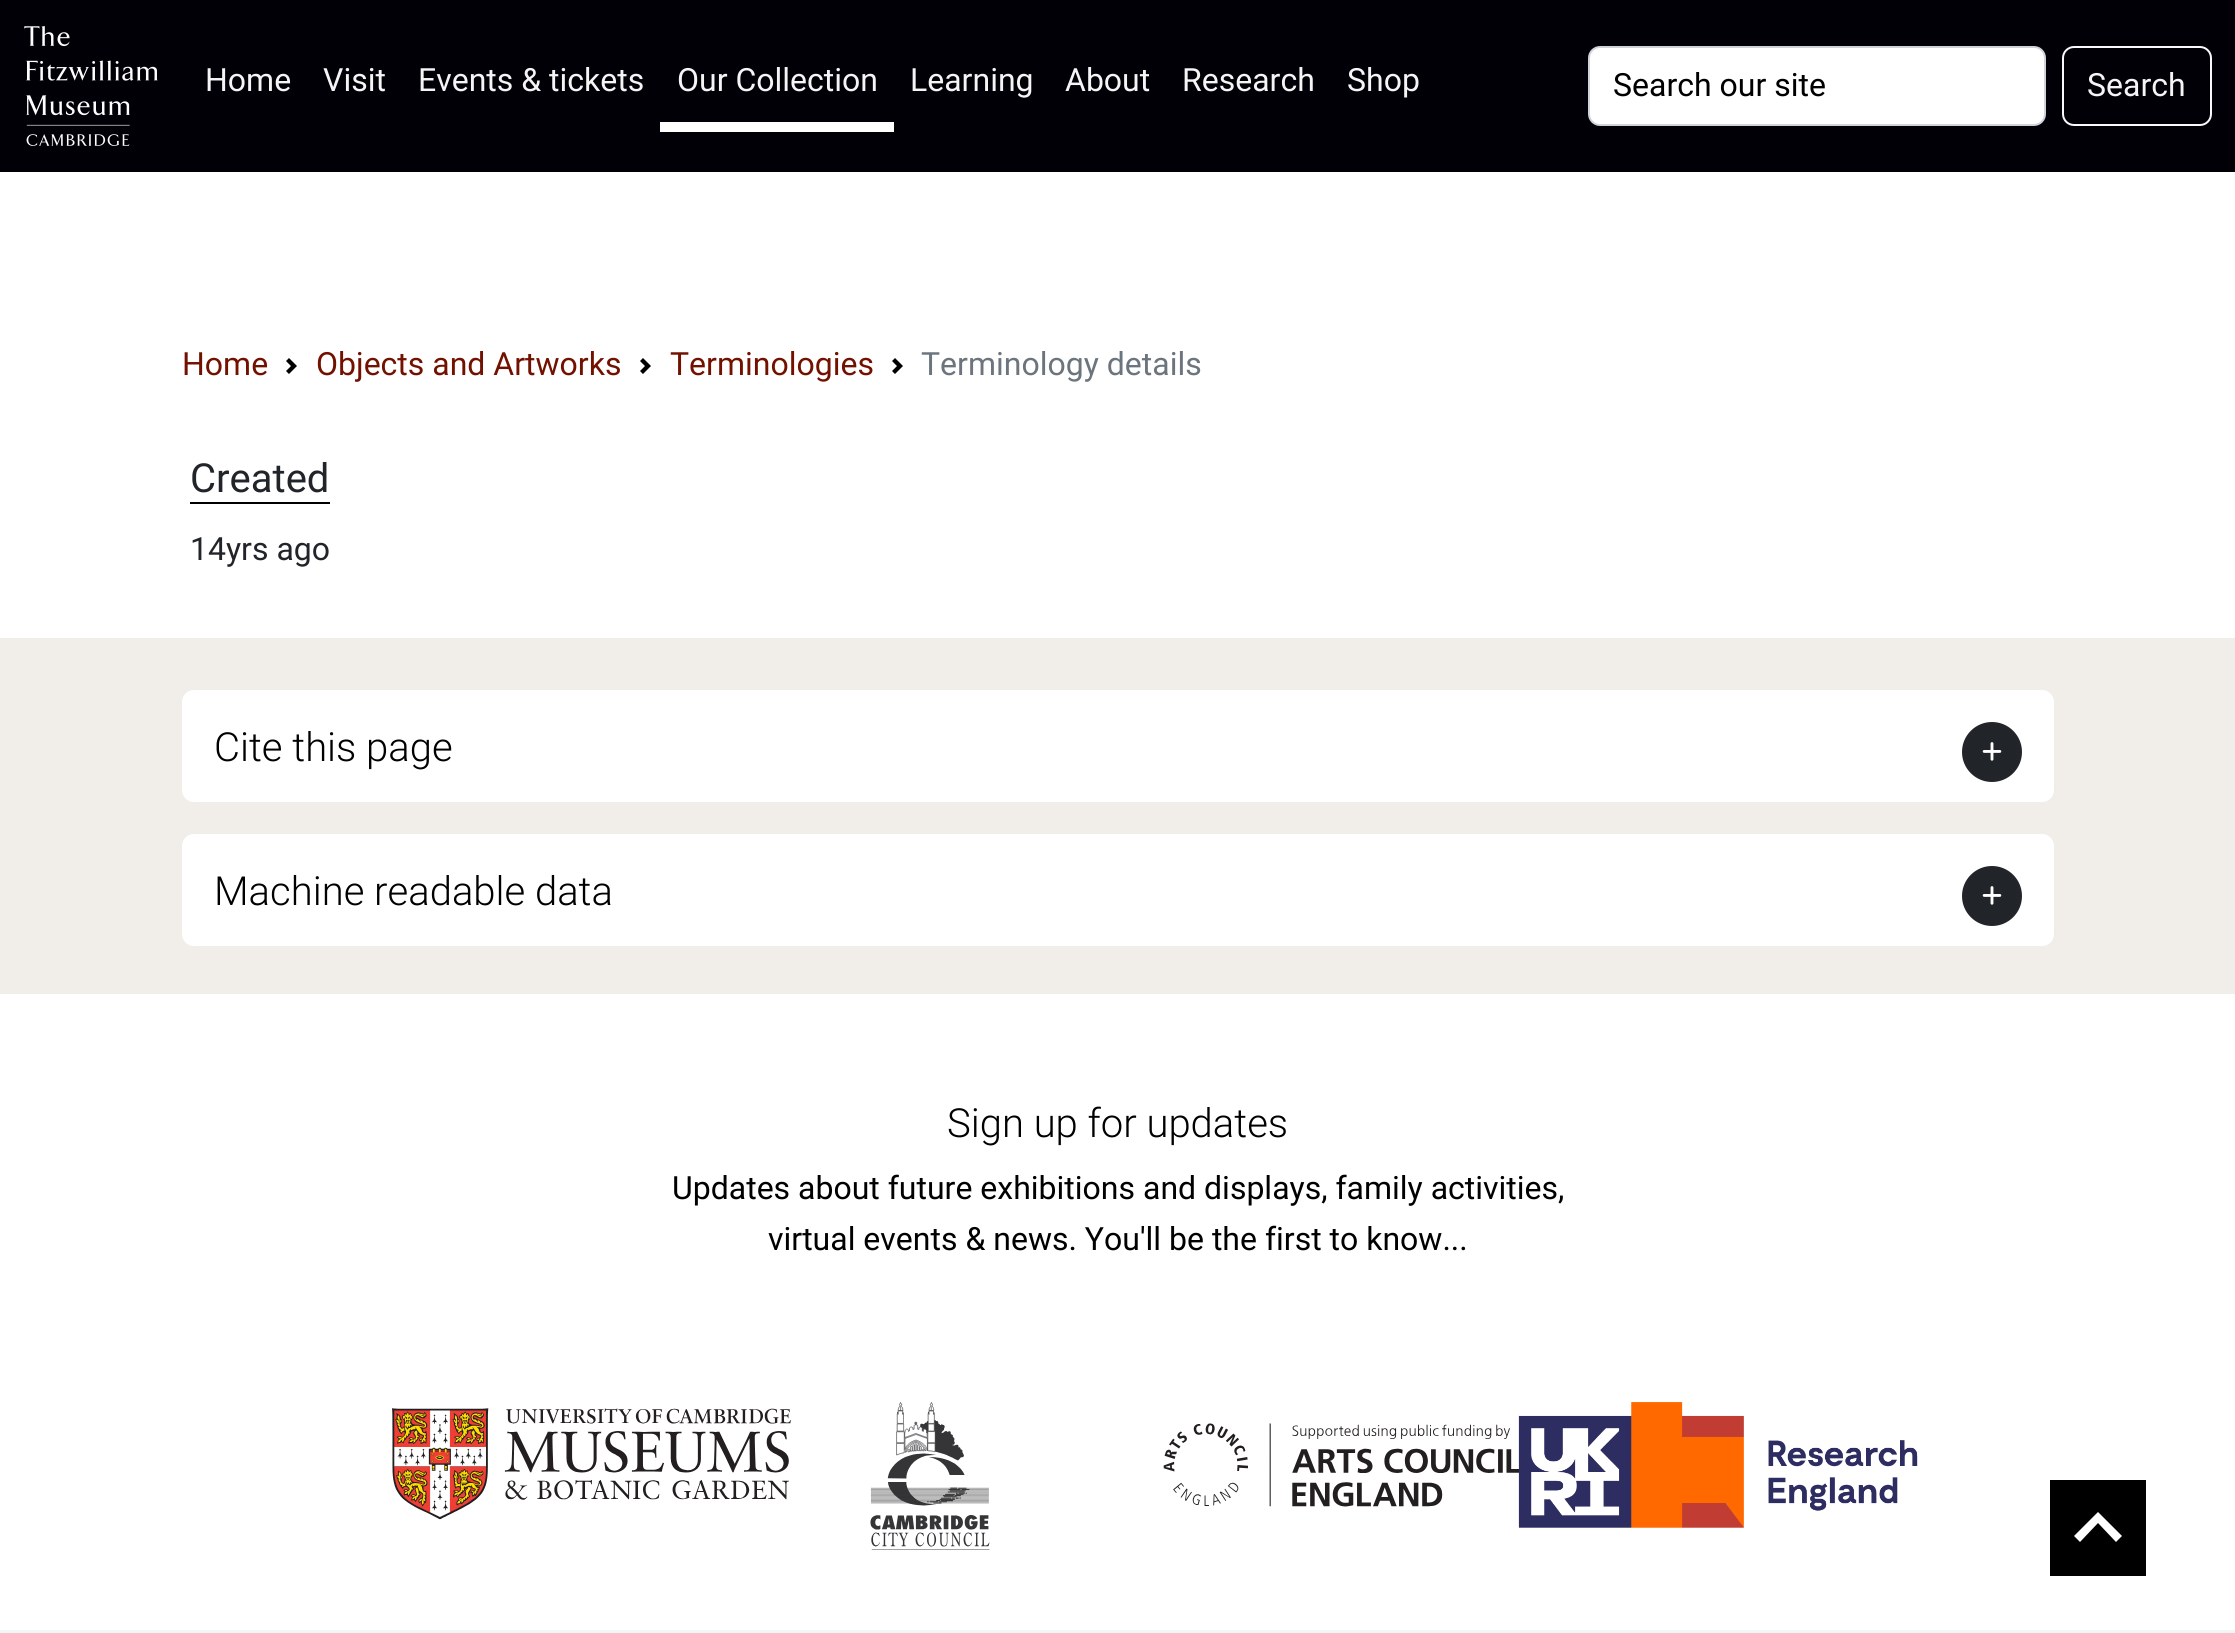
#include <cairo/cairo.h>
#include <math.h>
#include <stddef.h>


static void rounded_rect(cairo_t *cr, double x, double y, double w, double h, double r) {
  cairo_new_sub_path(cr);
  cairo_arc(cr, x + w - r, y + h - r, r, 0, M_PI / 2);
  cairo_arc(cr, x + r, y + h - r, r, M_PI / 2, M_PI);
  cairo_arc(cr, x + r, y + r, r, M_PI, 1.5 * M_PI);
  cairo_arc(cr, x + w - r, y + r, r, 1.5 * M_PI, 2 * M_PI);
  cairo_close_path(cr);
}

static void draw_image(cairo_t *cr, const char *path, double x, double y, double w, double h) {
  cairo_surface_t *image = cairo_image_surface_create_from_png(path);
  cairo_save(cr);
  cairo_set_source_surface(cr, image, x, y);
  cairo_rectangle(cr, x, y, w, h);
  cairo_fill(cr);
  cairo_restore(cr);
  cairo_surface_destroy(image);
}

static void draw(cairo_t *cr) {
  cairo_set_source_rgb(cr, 1, 1, 1);
  cairo_paint(cr);
  cairo_set_source_rgb(cr, 1 / 255.0, 0, 7 / 255.0);
  cairo_rectangle(cr, 0, 0, 2235, 172);
  cairo_fill(cr);
  draw_image(cr, "images/1.png", 24, 26, 134, 120);
  cairo_set_source_rgb(cr, 1, 1, 1);
  cairo_rectangle(cr, 660, 122, 234, 10);
  cairo_fill(cr);
  rounded_rect(cr, 1589, 47, 456, 78, 11);
  cairo_fill_preserve(cr);
  cairo_set_source_rgb(cr, 206 / 255.0, 212 / 255.0, 218 / 255.0);
  cairo_stroke(cr);
  rounded_rect(cr, 2063, 47, 148, 78, 11);
  cairo_set_source_rgb(cr, 248 / 255.0, 249 / 255.0, 250 / 255.0);
  cairo_stroke(cr);
  draw_image(cr, "images/2.png", 286, 358, 11, 16);
  draw_image(cr, "images/2.png", 640, 358, 11, 16);
  draw_image(cr, "images/2.png", 892, 358, 11, 16);
  cairo_set_source_rgb(cr, 0, 0, 0);
  cairo_rectangle(cr, 190, 502, 140, 2);
  cairo_fill(cr);
  cairo_set_source_rgb(cr, 241 / 255.0, 238 / 255.0, 234 / 255.0);
  cairo_rectangle(cr, 0, 638, 2235, 356);
  cairo_fill(cr);
  cairo_set_source_rgb(cr, 1, 1, 1);
  rounded_rect(cr, 182, 690, 1872, 112, 12);
  cairo_fill(cr);
  cairo_set_source_rgb(cr, 33 / 255.0, 37 / 255.0, 41 / 255.0);
  cairo_arc(cr, 1992, 752, 29, 0, 2 * M_PI);
  cairo_fill_preserve(cr);
  cairo_stroke(cr);
  draw_image(cr, "images/3.png", 1982, 742, 20, 19);
  cairo_set_source_rgb(cr, 1, 1, 1);
  rounded_rect(cr, 182, 834, 1872, 112, 12);
  cairo_fill(cr);
  cairo_set_source_rgb(cr, 33 / 255.0, 37 / 255.0, 41 / 255.0);
  cairo_arc(cr, 1992, 896, 29, 0, 2 * M_PI);
  cairo_fill_preserve(cr);
  cairo_stroke(cr);
  draw_image(cr, "images/3.png", 1982, 886, 20, 19);
  draw_image(cr, "images/4.png", 392, 1408, 399, 112);
  draw_image(cr, "images/5.png", 870, 1402, 120, 148);
  draw_image(cr, "images/6.png", 1163, 1423, 356, 84);
  draw_image(cr, "images/7.png", 1518, 1402, 400, 126);
  cairo_set_source_rgb(cr, 241 / 255.0, 246 / 255.0, 248 / 255.0);
  cairo_rectangle(cr, 0, 1630, 2235, 3);
  cairo_fill(cr);
  cairo_set_source_rgb(cr, 0, 0, 0);
  cairo_rectangle(cr, 2050, 1480, 96, 96);
  cairo_fill(cr);
  cairo_set_source_rgb(cr, 1, 1, 1);
  cairo_new_path(cr);
  cairo_move_to(cr, 2080, 1542);
  cairo_line_to(cr, 2098, 1523);
  cairo_line_to(cr, 2116, 1542);
  cairo_line_to(cr, 2122, 1536);
  cairo_line_to(cr, 2098, 1512);
  cairo_line_to(cr, 2074, 1536);
  cairo_close_path(cr);
  cairo_fill(cr);
  cairo_select_font_face(cr, "Roboto", CAIRO_FONT_SLANT_NORMAL, CAIRO_FONT_WEIGHT_NORMAL);
  cairo_set_font_size(cr, 32);
  cairo_set_source_rgb(cr, 245 / 255.0, 245 / 255.0, 245 / 255.0);
  cairo_move_to(cr, 205, 91);
  cairo_show_text(cr, "Home");
  cairo_move_to(cr, 323, 91);
  cairo_show_text(cr, "Visit");
  cairo_move_to(cr, 418, 91);
  cairo_show_text(cr, "Events & tickets");
  cairo_move_to(cr, 677, 91);
  cairo_show_text(cr, "Our Collection");
  cairo_move_to(cr, 910, 91);
  cairo_show_text(cr, "Learning");
  cairo_move_to(cr, 1065, 91);
  cairo_show_text(cr, "About");
  cairo_move_to(cr, 1182, 91);
  cairo_show_text(cr, "Research");
  cairo_move_to(cr, 1347, 91);
  cairo_show_text(cr, "Shop");
  cairo_set_source_rgb(cr, 0, 0, 0);
  cairo_move_to(cr, 1613, 96);
  cairo_show_text(cr, "Search our site");
  cairo_set_source_rgb(cr, 245 / 255.0, 245 / 255.0, 245 / 255.0);
  cairo_move_to(cr, 2087, 96);
  cairo_show_text(cr, "Search");
  cairo_set_source_rgb(cr, 115 / 255.0, 17 / 255.0, 0);
  cairo_move_to(cr, 182, 375);
  cairo_show_text(cr, "Home");
  cairo_move_to(cr, 316, 375);
  cairo_show_text(cr, "Objects and Artworks");
  cairo_move_to(cr, 670, 375);
  cairo_show_text(cr, "Terminologies");
  cairo_set_source_rgb(cr, 108 / 255.0, 117 / 255.0, 125 / 255.0);
  cairo_move_to(cr, 921, 375);
  cairo_show_text(cr, "Terminology details");
  cairo_set_font_size(cr, 40);
  cairo_set_source_rgb(cr, 33 / 255.0, 37 / 255.0, 41 / 255.0);
  cairo_move_to(cr, 190, 492);
  cairo_show_text(cr, "Created");
  cairo_set_font_size(cr, 32);
  cairo_move_to(cr, 190, 560);
  cairo_show_text(cr, "14yrs ago");
  cairo_select_font_face(cr, "Roboto Light", CAIRO_FONT_SLANT_NORMAL, CAIRO_FONT_WEIGHT_NORMAL);
  cairo_set_font_size(cr, 40);
  cairo_set_source_rgb(cr, 0, 0, 0);
  cairo_move_to(cr, 214, 761);
  cairo_show_text(cr, "Cite this page");
  cairo_move_to(cr, 214, 905);
  cairo_show_text(cr, "Machine readable data");
  cairo_move_to(cr, 947, 1137);
  cairo_show_text(cr, "Sign up for updates");
  cairo_select_font_face(cr, "Roboto", CAIRO_FONT_SLANT_NORMAL, CAIRO_FONT_WEIGHT_NORMAL);
  cairo_set_font_size(cr, 32);
  cairo_move_to(cr, 672, 1199);
  cairo_show_text(cr, "Updates about future exhibitions and displays, family activities,");
  cairo_move_to(cr, 768, 1250);
  cairo_show_text(cr, "virtual events & news. You'll be the first to know...");
}

int main(void) {
  cairo_surface_t *surface = cairo_image_surface_create(CAIRO_FORMAT_RGB24, 2235, 1633);
  cairo_t *cr = cairo_create(surface);
  cairo_font_options_t *options = cairo_font_options_create();
  cairo_font_options_set_hint_metrics(options, CAIRO_HINT_METRICS_OFF);
  cairo_font_options_set_hint_style(options, CAIRO_HINT_STYLE_NONE);
  cairo_set_font_options(cr, options);
  cairo_set_miter_limit(cr, 4);
  draw(cr);
  cairo_surface_write_to_png(surface, "out.png");
  cairo_font_options_destroy(options);
  cairo_destroy(cr);
  cairo_surface_destroy(surface);
  return 0;
}
